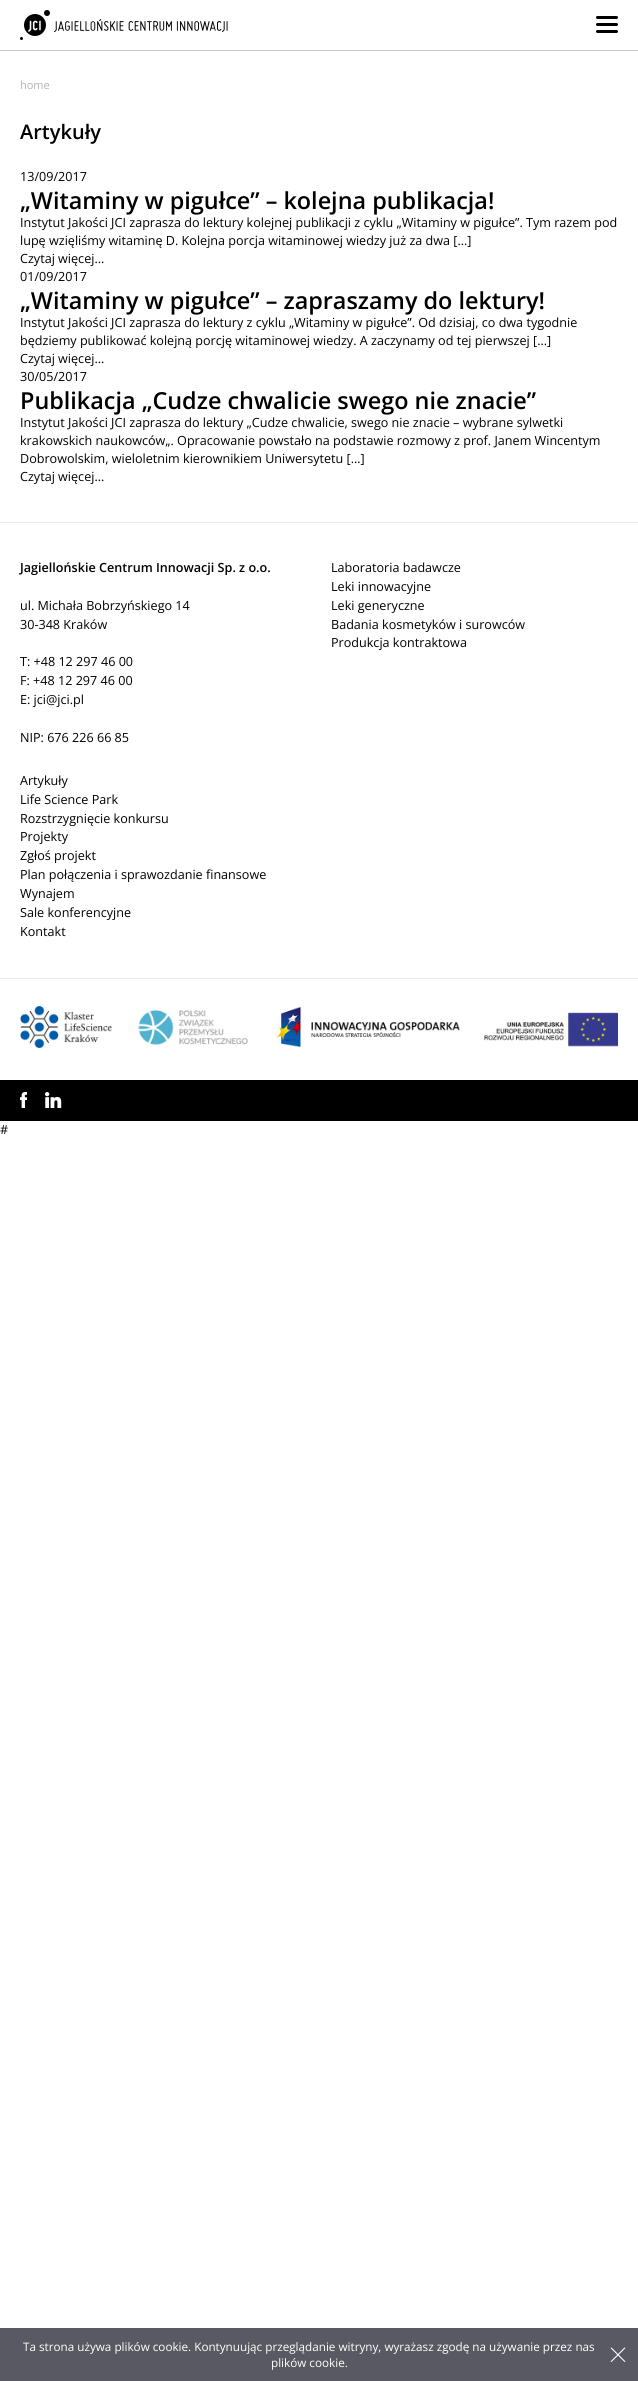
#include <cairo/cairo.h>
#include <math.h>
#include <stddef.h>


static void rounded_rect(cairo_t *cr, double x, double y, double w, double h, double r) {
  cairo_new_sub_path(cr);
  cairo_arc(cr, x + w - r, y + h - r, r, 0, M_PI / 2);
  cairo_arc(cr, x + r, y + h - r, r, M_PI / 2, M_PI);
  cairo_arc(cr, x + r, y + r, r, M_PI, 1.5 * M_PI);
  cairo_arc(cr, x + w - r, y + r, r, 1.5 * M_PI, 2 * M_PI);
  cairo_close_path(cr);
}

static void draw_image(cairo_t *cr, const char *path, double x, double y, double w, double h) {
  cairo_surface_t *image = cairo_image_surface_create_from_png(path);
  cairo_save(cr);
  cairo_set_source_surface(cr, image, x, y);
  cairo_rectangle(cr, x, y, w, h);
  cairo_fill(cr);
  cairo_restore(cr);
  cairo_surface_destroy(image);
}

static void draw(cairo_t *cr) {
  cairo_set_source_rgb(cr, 1, 1, 1);
  cairo_paint(cr);
  cairo_set_source_rgb(cr, 198 / 255.0, 198 / 255.0, 198 / 255.0);
  cairo_rectangle(cr, 0, 50, 638, 1);
  cairo_fill(cr);
  cairo_set_source_rgb(cr, 0, 0, 0);
  cairo_arc(cr, 47, 13, 3, 0, 2 * M_PI);
  cairo_fill(cr);
  cairo_arc(cr, 35, 25, 11, 0, 2 * M_PI);
  cairo_fill(cr);
  draw_image(cr, "images/1.png", 28, 20, 13, 12);
  cairo_arc(cr, 21.5, 38.5, 1.5, 0, 2 * M_PI);
  cairo_fill(cr);
  draw_image(cr, "images/2.png", 54, 19, 174, 13);
  rounded_rect(cr, 596, 16, 22, 3, 1.5);
  cairo_fill(cr);
  rounded_rect(cr, 596, 23, 22, 3, 1.5);
  cairo_fill(cr);
  rounded_rect(cr, 596, 30, 22, 3, 1.5);
  cairo_fill(cr);
  cairo_set_source_rgb(cr, 235 / 255.0, 235 / 255.0, 235 / 255.0);
  cairo_rectangle(cr, 0, 522, 638, 1);
  cairo_fill(cr);
  cairo_rectangle(cr, 0, 978, 638, 1);
  cairo_fill(cr);
  draw_image(cr, "images/3.png", 20, 1006, 92, 42);
  draw_image(cr, "images/4.png", 138, 1010, 110, 35);
  draw_image(cr, "images/5.png", 275, 1006, 185, 42);
  draw_image(cr, "images/6.png", 484, 1012, 134, 35);
  cairo_set_source_rgb(cr, 0, 0, 0);
  cairo_rectangle(cr, 0, 1080, 638, 41);
  cairo_fill(cr);
  draw_image(cr, "images/7.png", 20, 1092, 7, 16);
  draw_image(cr, "images/8.png", 45, 1092, 17, 16);
  cairo_set_source_rgb(cr, 89 / 255.0, 89 / 255.0, 99 / 255.0);
  cairo_rectangle(cr, 0, 2328, 638, 53);
  cairo_fill(cr);
  cairo_set_source_rgb(cr, 1, 1, 1);
  cairo_new_path(cr);
  cairo_move_to(cr, 610.5, 2361.5);
  cairo_line_to(cr, 624.5, 2347.5);
  cairo_line_to(cr, 625.5, 2348);
  cairo_line_to(cr, 611.5, 2362);
  cairo_close_path(cr);
  cairo_fill(cr);
  cairo_new_path(cr);
  cairo_move_to(cr, 611.5, 2347.5);
  cairo_line_to(cr, 625.5, 2361.5);
  cairo_line_to(cr, 624.5, 2362);
  cairo_line_to(cr, 610.5, 2348);
  cairo_close_path(cr);
  cairo_fill(cr);
  cairo_select_font_face(cr, "Open Sans", CAIRO_FONT_SLANT_NORMAL, CAIRO_FONT_WEIGHT_NORMAL);
  cairo_set_font_size(cr, 11);
  cairo_set_source_rgb(cr, 179 / 255.0, 179 / 255.0, 179 / 255.0);
  cairo_move_to(cr, 20, 89);
  cairo_show_text(cr, "home");
  cairo_select_font_face(cr, "Open Sans SemiBold", CAIRO_FONT_SLANT_NORMAL, CAIRO_FONT_WEIGHT_NORMAL);
  cairo_set_font_size(cr, 20);
  cairo_set_source_rgb(cr, 0, 0, 0);
  cairo_move_to(cr, 20, 139);
  cairo_show_text(cr, "Artykuły");
  cairo_select_font_face(cr, "Open Sans", CAIRO_FONT_SLANT_NORMAL, CAIRO_FONT_WEIGHT_NORMAL);
  cairo_set_font_size(cr, 12.6);
  cairo_move_to(cr, 20, 181);
  cairo_show_text(cr, "13/09/2017");
  cairo_select_font_face(cr, "Open Sans SemiBold", CAIRO_FONT_SLANT_NORMAL, CAIRO_FONT_WEIGHT_NORMAL);
  cairo_set_font_size(cr, 23.4);
  cairo_move_to(cr, 20, 209);
  cairo_show_text(cr, "„Witaminy w pigułce” – kolejna publikacja!");
  cairo_select_font_face(cr, "Open Sans", CAIRO_FONT_SLANT_NORMAL, CAIRO_FONT_WEIGHT_NORMAL);
  cairo_set_font_size(cr, 12.6);
  cairo_move_to(cr, 20, 227);
  cairo_show_text(cr, "Instytut Jakości JCI zaprasza do lektury kolejnej publikacji z cyklu „Witaminy w pigułce”. Tym razem pod");
  cairo_move_to(cr, 20, 245);
  cairo_show_text(cr, "lupę wzięliśmy witaminę D. Kolejna porcja witaminowej wiedzy już za dwa […]");
  cairo_move_to(cr, 20, 263);
  cairo_show_text(cr, "Czytaj więcej...");
  cairo_move_to(cr, 20, 281);
  cairo_show_text(cr, "01/09/2017");
  cairo_select_font_face(cr, "Open Sans SemiBold", CAIRO_FONT_SLANT_NORMAL, CAIRO_FONT_WEIGHT_NORMAL);
  cairo_set_font_size(cr, 23.4);
  cairo_move_to(cr, 20, 309);
  cairo_show_text(cr, "„Witaminy w pigułce” – zapraszamy do lektury!");
  cairo_select_font_face(cr, "Open Sans", CAIRO_FONT_SLANT_NORMAL, CAIRO_FONT_WEIGHT_NORMAL);
  cairo_set_font_size(cr, 12.6);
  cairo_move_to(cr, 20, 327);
  cairo_show_text(cr, "Instytut Jakości JCI zaprasza do lektury z cyklu „Witaminy w pigułce”. Od dzisiaj, co dwa tygodnie");
  cairo_move_to(cr, 20, 345);
  cairo_show_text(cr, "będziemy publikować kolejną porcję witaminowej wiedzy. A zaczynamy od tej pierwszej […]");
  cairo_move_to(cr, 20, 363);
  cairo_show_text(cr, "Czytaj więcej...");
  cairo_move_to(cr, 20, 381);
  cairo_show_text(cr, "30/05/2017");
  cairo_select_font_face(cr, "Open Sans SemiBold", CAIRO_FONT_SLANT_NORMAL, CAIRO_FONT_WEIGHT_NORMAL);
  cairo_set_font_size(cr, 23.4);
  cairo_move_to(cr, 20, 409);
  cairo_show_text(cr, "Publikacja „Cudze chwalicie swego nie znacie”");
  cairo_select_font_face(cr, "Open Sans", CAIRO_FONT_SLANT_NORMAL, CAIRO_FONT_WEIGHT_NORMAL);
  cairo_set_font_size(cr, 12.6);
  cairo_move_to(cr, 20, 427);
  cairo_show_text(cr, "Instytut Jakości JCI zaprasza do lektury „Cudze chwalicie, swego nie znacie – wybrane sylwetki");
  cairo_move_to(cr, 20, 445);
  cairo_show_text(cr, "krakowskich naukowców„. Opracowanie powstało na podstawie rozmowy z prof. Janem Wincentym");
  cairo_move_to(cr, 20, 463);
  cairo_show_text(cr, "Dobrowolskim, wieloletnim kierownikiem Uniwersytetu […]");
  cairo_move_to(cr, 20, 481);
  cairo_show_text(cr, "Czytaj więcej...");
  cairo_select_font_face(cr, "Open Sans SemiBold", CAIRO_FONT_SLANT_NORMAL, CAIRO_FONT_WEIGHT_NORMAL);
  cairo_move_to(cr, 20, 572);
  cairo_show_text(cr, "Jagiellońskie Centrum Innowacji Sp. z o.o.");
  cairo_select_font_face(cr, "Open Sans", CAIRO_FONT_SLANT_NORMAL, CAIRO_FONT_WEIGHT_NORMAL);
  cairo_move_to(cr, 20, 610);
  cairo_show_text(cr, "ul. Michała Bobrzyńskiego 14");
  cairo_move_to(cr, 20, 629);
  cairo_show_text(cr, "30-348 Kraków");
  cairo_move_to(cr, 20, 666);
  cairo_show_text(cr, "T: +48 12 297 46 00");
  cairo_move_to(cr, 20, 685);
  cairo_show_text(cr, "F: +48 12 297 46 00");
  cairo_move_to(cr, 20, 704);
  cairo_show_text(cr, "E: jci@jci.pl");
  cairo_move_to(cr, 20, 742);
  cairo_show_text(cr, "NIP: 676 226 66 85");
  cairo_move_to(cr, 331, 572);
  cairo_show_text(cr, "Laboratoria badawcze");
  cairo_move_to(cr, 331, 591);
  cairo_show_text(cr, "Leki innowacyjne");
  cairo_move_to(cr, 331, 610);
  cairo_show_text(cr, "Leki generyczne");
  cairo_move_to(cr, 331, 629);
  cairo_show_text(cr, "Badania kosmetyków i surowców");
  cairo_move_to(cr, 331, 647);
  cairo_show_text(cr, "Produkcja kontraktowa");
  cairo_move_to(cr, 20, 785);
  cairo_show_text(cr, "Artykuły");
  cairo_move_to(cr, 20, 804);
  cairo_show_text(cr, "Life Science Park");
  cairo_move_to(cr, 20, 823);
  cairo_show_text(cr, "Rozstrzygnięcie konkursu");
  cairo_move_to(cr, 20, 841);
  cairo_show_text(cr, "Projekty");
  cairo_move_to(cr, 20, 860);
  cairo_show_text(cr, "Zgłoś projekt");
  cairo_move_to(cr, 20, 879);
  cairo_show_text(cr, "Plan połączenia i sprawozdanie finansowe");
  cairo_move_to(cr, 20, 898);
  cairo_show_text(cr, "Wynajem");
  cairo_move_to(cr, 20, 917);
  cairo_show_text(cr, "Sale konferencyjne");
  cairo_move_to(cr, 20, 936);
  cairo_show_text(cr, "Kontakt");
  cairo_move_to(cr, 0, 1134);
  cairo_show_text(cr, "#");
  cairo_set_font_size(cr, 11.7);
  cairo_set_source_rgb(cr, 1, 1, 1);
  cairo_move_to(cr, 23, 2351);
  cairo_show_text(cr, "Ta strona używa plików cookie. Kontynuując przeglądanie witryny, wyrażasz zgodę na używanie przez nas");
  cairo_move_to(cr, 271, 2367);
  cairo_show_text(cr, "plików cookie.");
}

int main(void) {
  cairo_surface_t *surface = cairo_image_surface_create(CAIRO_FORMAT_RGB24, 638, 2381);
  cairo_t *cr = cairo_create(surface);
  cairo_font_options_t *options = cairo_font_options_create();
  cairo_font_options_set_hint_metrics(options, CAIRO_HINT_METRICS_OFF);
  cairo_font_options_set_hint_style(options, CAIRO_HINT_STYLE_NONE);
  cairo_set_font_options(cr, options);
  cairo_set_miter_limit(cr, 4);
  draw(cr);
  cairo_surface_write_to_png(surface, "out.png");
  cairo_font_options_destroy(options);
  cairo_destroy(cr);
  cairo_surface_destroy(surface);
  return 0;
}
